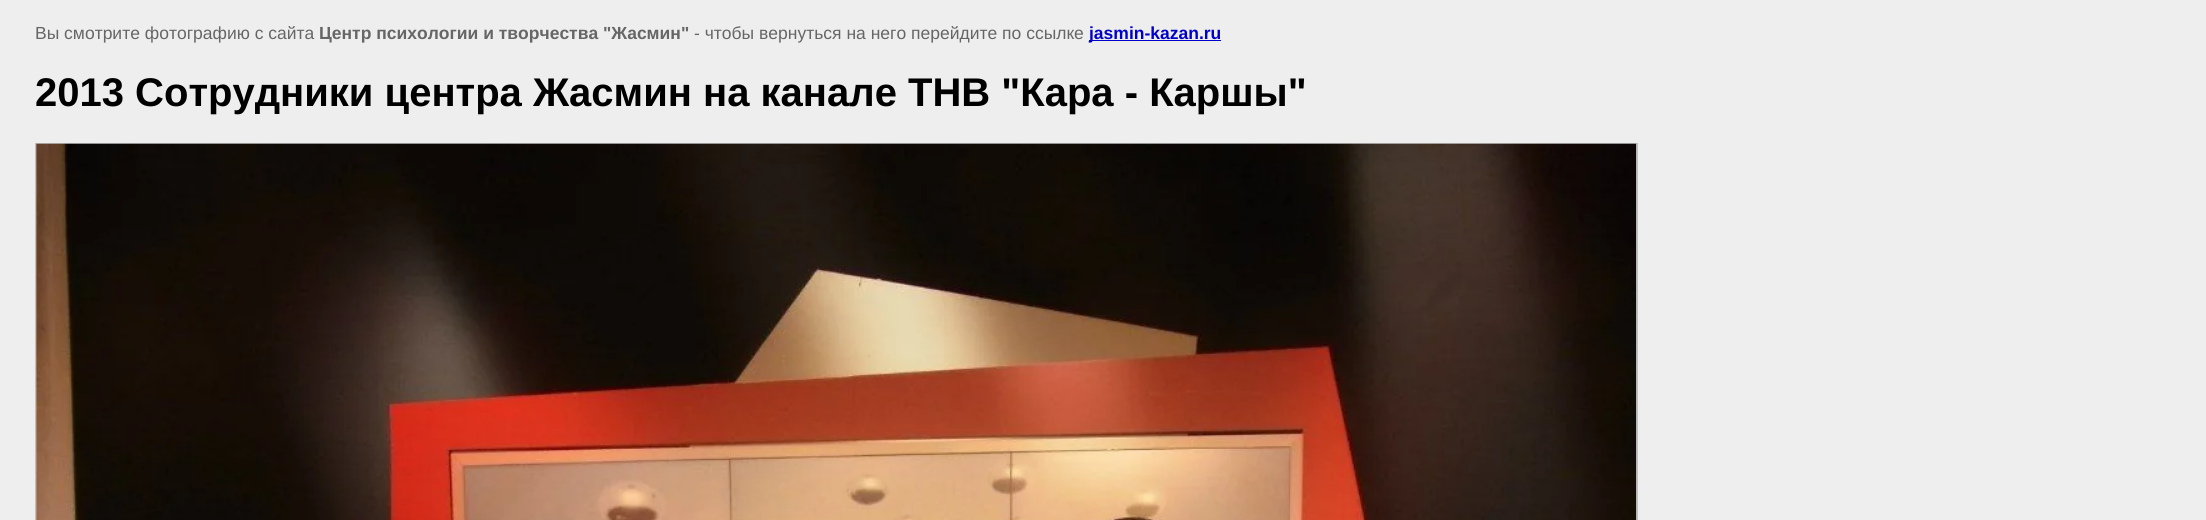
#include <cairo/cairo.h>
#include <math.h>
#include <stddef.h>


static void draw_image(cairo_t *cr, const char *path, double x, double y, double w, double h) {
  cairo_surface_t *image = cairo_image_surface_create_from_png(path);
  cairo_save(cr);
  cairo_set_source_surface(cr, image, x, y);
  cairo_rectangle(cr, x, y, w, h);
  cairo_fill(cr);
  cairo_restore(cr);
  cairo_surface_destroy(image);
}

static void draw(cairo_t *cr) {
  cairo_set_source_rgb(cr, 238 / 255.0, 238 / 255.0, 238 / 255.0);
  cairo_paint(cr);
  cairo_set_source_rgb(cr, 0, 0, 204 / 255.0);
  cairo_rectangle(cr, 1089, 40, 132, 1);
  cairo_fill(cr);
  cairo_rectangle(cr, 35.5, 143.5, 1602, 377);
  cairo_set_source_rgb(cr, 192 / 255.0, 192 / 255.0, 192 / 255.0);
  cairo_set_line_width(cr, 1);
  cairo_stroke(cr);
  draw_image(cr, "images/1.png", 36, 143, 1601, 377);
  cairo_select_font_face(cr, "Liberation Sans", CAIRO_FONT_SLANT_NORMAL, CAIRO_FONT_WEIGHT_NORMAL);
  cairo_set_font_size(cr, 17.5);
  cairo_set_source_rgb(cr, 102 / 255.0, 102 / 255.0, 102 / 255.0);
  cairo_move_to(cr, 35, 39);
  cairo_show_text(cr, "Вы смотрите фотографию с сайта");
  cairo_select_font_face(cr, "Liberation Sans", CAIRO_FONT_SLANT_NORMAL, CAIRO_FONT_WEIGHT_BOLD);
  cairo_move_to(cr, 319, 39);
  cairo_show_text(cr, "Центр психологии и творчества \"Жасмин\"");
  cairo_select_font_face(cr, "Liberation Sans", CAIRO_FONT_SLANT_NORMAL, CAIRO_FONT_WEIGHT_NORMAL);
  cairo_move_to(cr, 694, 39);
  cairo_show_text(cr, "- чтобы вернуться на него перейдите по ссылке");
  cairo_select_font_face(cr, "Liberation Sans", CAIRO_FONT_SLANT_NORMAL, CAIRO_FONT_WEIGHT_BOLD);
  cairo_set_source_rgb(cr, 0, 0, 204 / 255.0);
  cairo_move_to(cr, 1089, 39);
  cairo_show_text(cr, "jasmin-kazan.ru");
  cairo_set_font_size(cr, 40);
  cairo_set_source_rgb(cr, 0, 0, 0);
  cairo_move_to(cr, 35, 106);
  cairo_show_text(cr, "2013 Сотрудники центра Жасмин на канале ТНВ \"Кара - Каршы\"");
}

int main(void) {
  cairo_surface_t *surface = cairo_image_surface_create(CAIRO_FORMAT_RGB24, 2206, 520);
  cairo_t *cr = cairo_create(surface);
  cairo_font_options_t *options = cairo_font_options_create();
  cairo_font_options_set_hint_metrics(options, CAIRO_HINT_METRICS_OFF);
  cairo_font_options_set_hint_style(options, CAIRO_HINT_STYLE_NONE);
  cairo_set_font_options(cr, options);
  cairo_set_miter_limit(cr, 4);
  draw(cr);
  cairo_surface_write_to_png(surface, "out.png");
  cairo_font_options_destroy(options);
  cairo_destroy(cr);
  cairo_surface_destroy(surface);
  return 0;
}
